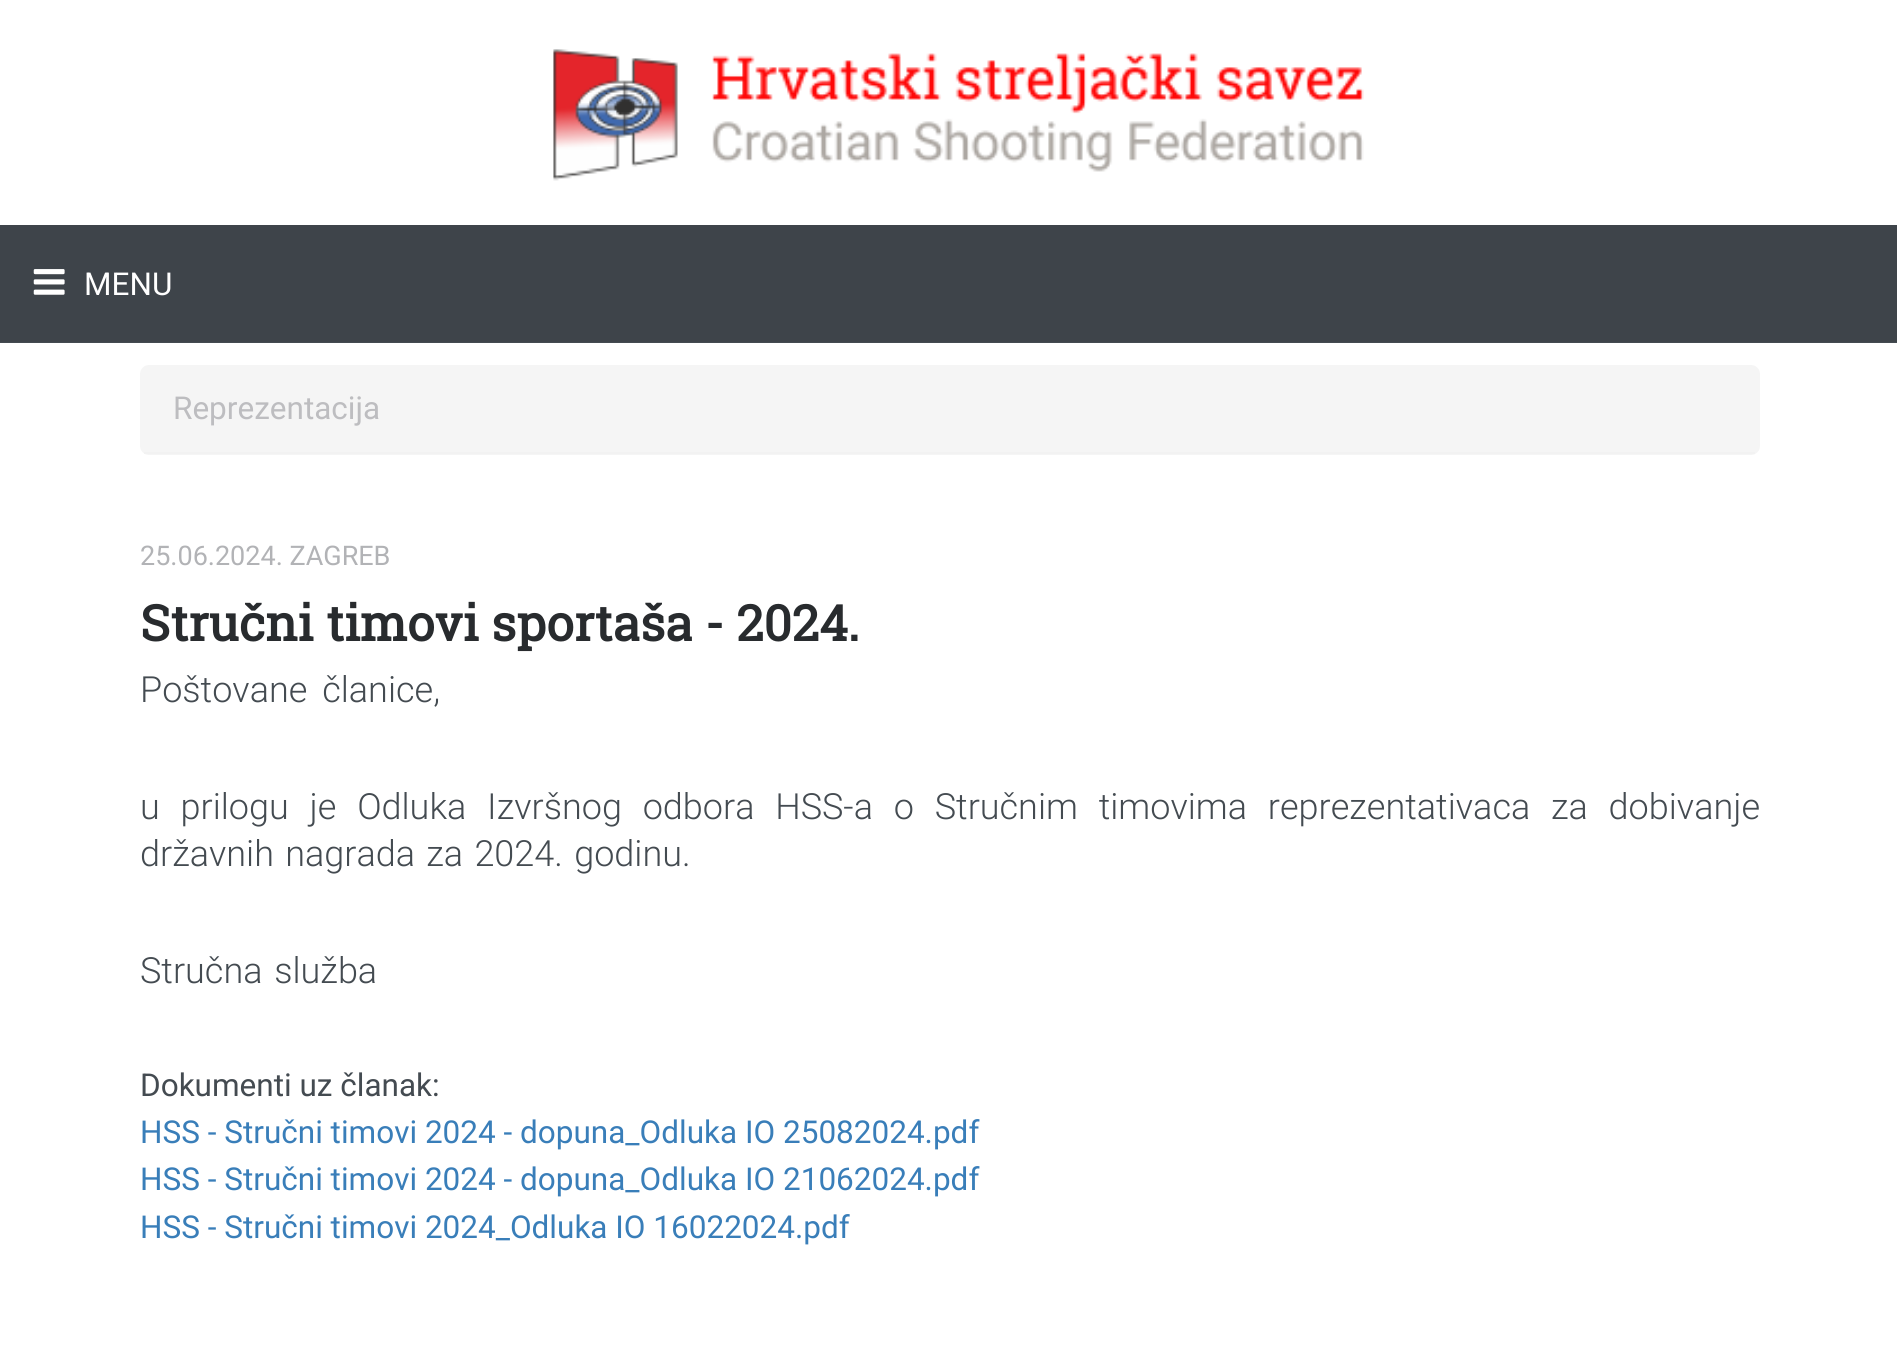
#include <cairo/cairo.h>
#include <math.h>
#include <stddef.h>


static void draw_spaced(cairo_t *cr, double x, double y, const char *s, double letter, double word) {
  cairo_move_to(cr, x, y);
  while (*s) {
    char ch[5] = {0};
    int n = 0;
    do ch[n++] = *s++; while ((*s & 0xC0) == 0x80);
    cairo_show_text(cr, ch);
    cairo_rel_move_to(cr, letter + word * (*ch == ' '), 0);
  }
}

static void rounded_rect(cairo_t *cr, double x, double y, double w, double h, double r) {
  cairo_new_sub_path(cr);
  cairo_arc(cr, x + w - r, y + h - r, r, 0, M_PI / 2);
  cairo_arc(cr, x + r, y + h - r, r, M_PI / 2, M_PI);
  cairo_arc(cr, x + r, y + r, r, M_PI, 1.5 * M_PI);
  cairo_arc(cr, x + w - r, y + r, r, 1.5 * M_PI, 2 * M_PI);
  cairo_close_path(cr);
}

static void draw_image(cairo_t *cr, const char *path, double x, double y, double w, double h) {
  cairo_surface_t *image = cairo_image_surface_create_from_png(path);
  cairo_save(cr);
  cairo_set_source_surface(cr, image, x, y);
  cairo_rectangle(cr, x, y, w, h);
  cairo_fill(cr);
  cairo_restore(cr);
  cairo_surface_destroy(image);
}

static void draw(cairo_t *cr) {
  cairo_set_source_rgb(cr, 1, 1, 1);
  cairo_paint(cr);
  draw_image(cr, "images/1.png", 553, 49, 811, 132);
  cairo_set_source_rgb(cr, 68 / 255.0, 75 / 255.0, 81 / 255.0);
  cairo_rectangle(cr, 0, 342, 1897, 1);
  cairo_fill(cr);
  cairo_set_source_rgb(cr, 62 / 255.0, 68 / 255.0, 74 / 255.0);
  cairo_rectangle(cr, 0, 225, 1897, 117);
  cairo_fill(cr);
  draw_image(cr, "images/2.png", 33, 269, 32, 26);
  cairo_set_source_rgb(cr, 245 / 255.0, 245 / 255.0, 245 / 255.0);
  rounded_rect(cr, 140, 365, 1620, 90, 9);
  cairo_fill(cr);
  cairo_set_source_rgb(cr, 242 / 255.0, 242 / 255.0, 242 / 255.0);
  cairo_rectangle(cr, 144, 452, 1611, 2);
  cairo_fill(cr);
  cairo_select_font_face(cr, "Roboto", CAIRO_FONT_SLANT_NORMAL, CAIRO_FONT_WEIGHT_NORMAL);
  cairo_set_font_size(cr, 31.5);
  cairo_set_source_rgb(cr, 1, 1, 1);
  cairo_move_to(cr, 84, 295);
  cairo_show_text(cr, "MENU");
  cairo_set_source_rgb(cr, 189 / 255.0, 189 / 255.0, 192 / 255.0);
  cairo_move_to(cr, 173, 419);
  cairo_show_text(cr, "Reprezentacija");
  cairo_set_font_size(cr, 27);
  cairo_set_source_rgb(cr, 178 / 255.0, 179 / 255.0, 182 / 255.0);
  cairo_move_to(cr, 140, 565);
  cairo_show_text(cr, "25.06.2024. ZAGREB");
  cairo_select_font_face(cr, "Roboto Slab", CAIRO_FONT_SLANT_NORMAL, CAIRO_FONT_WEIGHT_BOLD);
  cairo_set_font_size(cr, 49.5);
  cairo_set_source_rgb(cr, 40 / 255.0, 43 / 255.0, 46 / 255.0);
  cairo_move_to(cr, 140, 641);
  cairo_show_text(cr, "Stručni timovi sportaša - 2024.");
  cairo_select_font_face(cr, "Roboto Light", CAIRO_FONT_SLANT_NORMAL, CAIRO_FONT_WEIGHT_NORMAL);
  cairo_set_font_size(cr, 36);
  cairo_set_source_rgb(cr, 68 / 255.0, 75 / 255.0, 81 / 255.0);
  draw_spaced(cr, 140, 702, "Poštovane članice,", 0, 6);
  draw_spaced(cr, 140, 819, "u prilogu je Odluka Izvršnog odbora HSS-a o Stručnim timovima reprezentativaca za dobivanje", 0, 12);
  draw_spaced(cr, 140, 866, "državnih nagrada za 2024. godinu.", 0, 2.5);
  draw_spaced(cr, 140, 983, "Stručna služba", 0, 3);
  cairo_select_font_face(cr, "Roboto", CAIRO_FONT_SLANT_NORMAL, CAIRO_FONT_WEIGHT_NORMAL);
  cairo_set_font_size(cr, 31.5);
  cairo_move_to(cr, 140, 1096);
  cairo_show_text(cr, "Dokumenti uz članak:");
  cairo_set_source_rgb(cr, 57 / 255.0, 126 / 255.0, 185 / 255.0);
  cairo_move_to(cr, 140, 1143);
  cairo_show_text(cr, "HSS - Stručni timovi 2024 - dopuna_Odluka IO 25082024.pdf");
  cairo_move_to(cr, 140, 1190);
  cairo_show_text(cr, "HSS - Stručni timovi 2024 - dopuna_Odluka IO 21062024.pdf");
  cairo_move_to(cr, 140, 1238);
  cairo_show_text(cr, "HSS - Stručni timovi 2024_Odluka IO 16022024.pdf");
}

int main(void) {
  cairo_surface_t *surface = cairo_image_surface_create(CAIRO_FORMAT_RGB24, 1897, 1367);
  cairo_t *cr = cairo_create(surface);
  cairo_font_options_t *options = cairo_font_options_create();
  cairo_font_options_set_hint_metrics(options, CAIRO_HINT_METRICS_OFF);
  cairo_font_options_set_hint_style(options, CAIRO_HINT_STYLE_NONE);
  cairo_set_font_options(cr, options);
  cairo_set_miter_limit(cr, 4);
  draw(cr);
  cairo_surface_write_to_png(surface, "out.png");
  cairo_font_options_destroy(options);
  cairo_destroy(cr);
  cairo_surface_destroy(surface);
  return 0;
}
